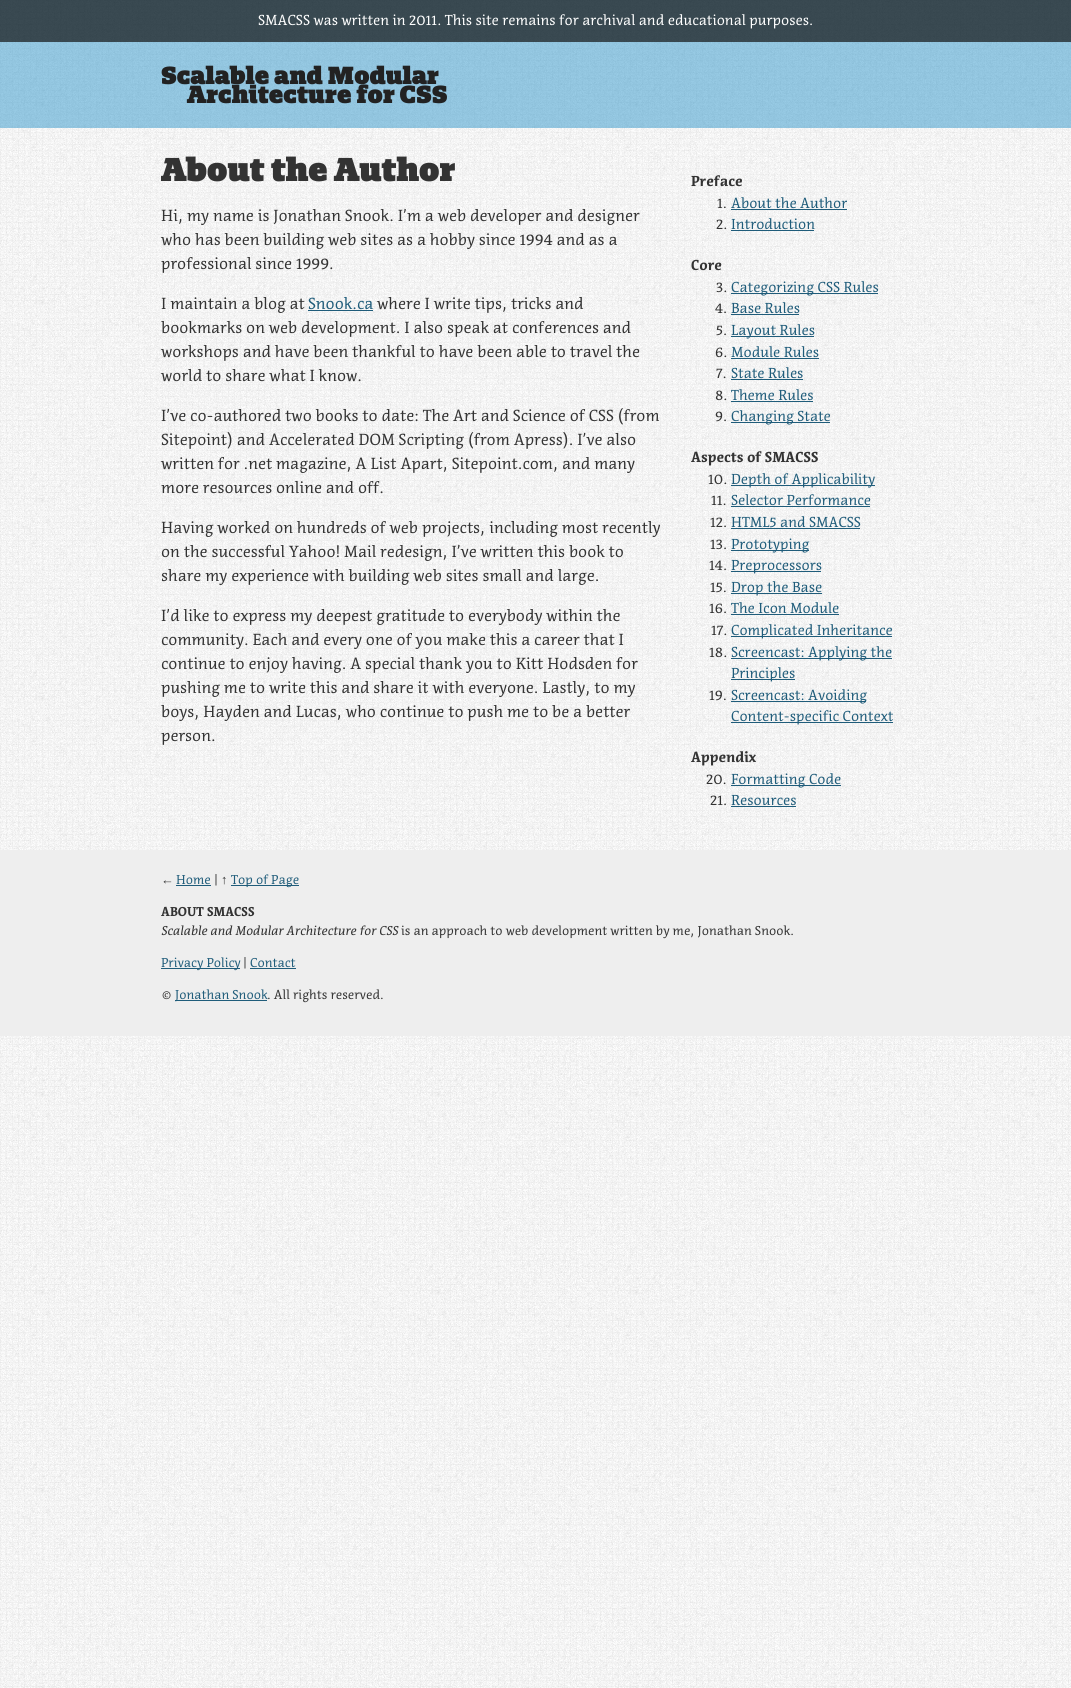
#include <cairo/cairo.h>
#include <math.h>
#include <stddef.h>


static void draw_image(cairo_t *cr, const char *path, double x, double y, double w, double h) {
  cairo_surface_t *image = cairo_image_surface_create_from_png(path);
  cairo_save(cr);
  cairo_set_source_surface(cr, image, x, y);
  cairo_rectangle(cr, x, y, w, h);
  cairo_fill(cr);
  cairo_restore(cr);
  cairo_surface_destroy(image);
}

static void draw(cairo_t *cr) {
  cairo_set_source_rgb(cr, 1, 1, 1);
  cairo_paint(cr);
  draw_image(cr, "images/1.png", 0, 0, 1071, 1688);
  cairo_set_source_rgba(cr, 10 / 255.0, 31 / 255.0, 41 / 255.0, 0.8);
  cairo_rectangle(cr, 0, 0, 1071, 42);
  cairo_fill(cr);
  cairo_set_source_rgba(cr, 51 / 255.0, 153 / 255.0, 204 / 255.0, 0.5);
  cairo_rectangle(cr, 0, 42, 1071, 86);
  cairo_fill(cr);
  cairo_set_source_rgb(cr, 31 / 255.0, 92 / 255.0, 122 / 255.0);
  cairo_rectangle(cr, 308, 310, 65, 1);
  cairo_fill(cr);
  cairo_rectangle(cr, 731, 209, 116, 1);
  cairo_fill(cr);
  cairo_rectangle(cr, 731, 230, 83, 1);
  cairo_fill(cr);
  cairo_rectangle(cr, 731, 293, 147, 1);
  cairo_fill(cr);
  cairo_rectangle(cr, 731, 314, 68, 1);
  cairo_fill(cr);
  cairo_rectangle(cr, 731, 336, 83, 1);
  cairo_fill(cr);
  cairo_rectangle(cr, 731, 358, 88, 1);
  cairo_fill(cr);
  cairo_rectangle(cr, 731, 379, 72, 1);
  cairo_fill(cr);
  cairo_rectangle(cr, 731, 401, 82, 1);
  cairo_fill(cr);
  cairo_rectangle(cr, 731, 422, 99, 1);
  cairo_fill(cr);
  cairo_rectangle(cr, 731, 485, 144, 1);
  cairo_fill(cr);
  cairo_rectangle(cr, 731, 506, 139, 1);
  cairo_fill(cr);
  cairo_rectangle(cr, 731, 528, 129, 1);
  cairo_fill(cr);
  cairo_rectangle(cr, 731, 550, 78, 1);
  cairo_fill(cr);
  cairo_rectangle(cr, 731, 571, 90, 1);
  cairo_fill(cr);
  cairo_rectangle(cr, 731, 593, 91, 1);
  cairo_fill(cr);
  cairo_rectangle(cr, 731, 614, 108, 1);
  cairo_fill(cr);
  cairo_rectangle(cr, 731, 636, 161, 1);
  cairo_fill(cr);
  cairo_rectangle(cr, 731, 658, 161, 1);
  cairo_fill(cr);
  cairo_rectangle(cr, 731, 679, 64, 1);
  cairo_fill(cr);
  cairo_rectangle(cr, 731, 701, 135, 1);
  cairo_fill(cr);
  cairo_rectangle(cr, 731, 722, 162, 1);
  cairo_fill(cr);
  cairo_rectangle(cr, 731, 785, 110, 1);
  cairo_fill(cr);
  cairo_rectangle(cr, 731, 806, 65, 1);
  cairo_fill(cr);
  cairo_set_source_rgb(cr, 238 / 255.0, 238 / 255.0, 238 / 255.0);
  cairo_rectangle(cr, 0, 850, 1071, 186);
  cairo_fill(cr);
  cairo_set_source_rgb(cr, 31 / 255.0, 92 / 255.0, 122 / 255.0);
  cairo_rectangle(cr, 176, 885, 35, 1);
  cairo_fill(cr);
  cairo_rectangle(cr, 231, 885, 68, 1);
  cairo_fill(cr);
  cairo_rectangle(cr, 161, 968, 79, 1);
  cairo_fill(cr);
  cairo_rectangle(cr, 250, 968, 46, 1);
  cairo_fill(cr);
  cairo_rectangle(cr, 175, 1000, 92, 1);
  cairo_fill(cr);
  cairo_select_font_face(cr, "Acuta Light", CAIRO_FONT_SLANT_NORMAL, CAIRO_FONT_WEIGHT_NORMAL);
  cairo_set_font_size(cr, 14.4);
  cairo_set_source_rgb(cr, 1, 1, 1);
  cairo_move_to(cr, 258, 25);
  cairo_show_text(cr, "SMACSS was written in 2011. This site remains for archival and educational purposes.");
  cairo_select_font_face(cr, "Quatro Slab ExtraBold", CAIRO_FONT_SLANT_NORMAL, CAIRO_FONT_WEIGHT_NORMAL);
  cairo_set_font_size(cr, 24);
  cairo_set_source_rgb(cr, 34 / 255.0, 34 / 255.0, 34 / 255.0);
  cairo_move_to(cr, 161, 84);
  cairo_show_text(cr, "Scalable and Modular");
  cairo_move_to(cr, 187, 103);
  cairo_show_text(cr, "Architecture for CSS");
  cairo_save(cr);
  cairo_rectangle(cr, 161, 128, 750, 722);
  cairo_clip(cr);
  cairo_set_font_size(cr, 32);
  cairo_set_source_rgb(cr, 51 / 255.0, 51 / 255.0, 51 / 255.0);
  cairo_move_to(cr, 161, 181);
  cairo_show_text(cr, "About the Author");
  cairo_restore(cr);
  cairo_select_font_face(cr, "Acuta Light", CAIRO_FONT_SLANT_NORMAL, CAIRO_FONT_WEIGHT_NORMAL);
  cairo_set_font_size(cr, 16);
  cairo_set_source_rgb(cr, 51 / 255.0, 51 / 255.0, 51 / 255.0);
  cairo_move_to(cr, 161, 221);
  cairo_show_text(cr, "Hi, my name is Jonathan Snook. I’m a web developer and designer");
  cairo_move_to(cr, 161, 245);
  cairo_show_text(cr, "who has been building web sites as a hobby since 1994 and as a");
  cairo_move_to(cr, 161, 269);
  cairo_show_text(cr, "professional since 1999.");
  cairo_move_to(cr, 161, 309);
  cairo_show_text(cr, "I maintain a blog at");
  cairo_set_source_rgb(cr, 31 / 255.0, 92 / 255.0, 122 / 255.0);
  cairo_move_to(cr, 308, 309);
  cairo_show_text(cr, "Snook.ca");
  cairo_set_source_rgb(cr, 51 / 255.0, 51 / 255.0, 51 / 255.0);
  cairo_move_to(cr, 377, 309);
  cairo_show_text(cr, "where I write tips, tricks and");
  cairo_move_to(cr, 161, 333);
  cairo_show_text(cr, "bookmarks on web development. I also speak at conferences and");
  cairo_move_to(cr, 161, 357);
  cairo_show_text(cr, "workshops and have been thankful to have been able to travel the");
  cairo_move_to(cr, 161, 381);
  cairo_show_text(cr, "world to share what I know.");
  cairo_move_to(cr, 161, 421);
  cairo_show_text(cr, "I’ve co-authored two books to date: The Art and Science of CSS (from");
  cairo_move_to(cr, 161, 445);
  cairo_show_text(cr, "Sitepoint) and Accelerated DOM Scripting (from Apress). I’ve also");
  cairo_move_to(cr, 161, 469);
  cairo_show_text(cr, "written for .net magazine, A List Apart, Sitepoint.com, and many");
  cairo_move_to(cr, 161, 493);
  cairo_show_text(cr, "more resources online and off.");
  cairo_move_to(cr, 161, 533);
  cairo_show_text(cr, "Having worked on hundreds of web projects, including most recently");
  cairo_move_to(cr, 161, 557);
  cairo_show_text(cr, "on the successful Yahoo! Mail redesign, I’ve written this book to");
  cairo_move_to(cr, 161, 581);
  cairo_show_text(cr, "share my experience with building web sites small and large.");
  cairo_move_to(cr, 161, 621);
  cairo_show_text(cr, "I’d like to express my deepest gratitude to everybody within the");
  cairo_move_to(cr, 161, 645);
  cairo_show_text(cr, "community. Each and every one of you make this a career that I");
  cairo_move_to(cr, 161, 669);
  cairo_show_text(cr, "continue to enjoy having. A special thank you to Kitt Hodsden for");
  cairo_move_to(cr, 161, 693);
  cairo_show_text(cr, "pushing me to write this and share it with everyone. Lastly, to my");
  cairo_move_to(cr, 161, 717);
  cairo_show_text(cr, "boys, Hayden and Lucas, who continue to push me to be a better");
  cairo_move_to(cr, 161, 741);
  cairo_show_text(cr, "person.");
  cairo_select_font_face(cr, "Acuta", CAIRO_FONT_SLANT_NORMAL, CAIRO_FONT_WEIGHT_BOLD);
  cairo_set_font_size(cr, 14.4);
  cairo_move_to(cr, 691, 186);
  cairo_show_text(cr, "Preface");
  cairo_select_font_face(cr, "Acuta Light", CAIRO_FONT_SLANT_NORMAL, CAIRO_FONT_WEIGHT_NORMAL);
  cairo_move_to(cr, 717, 208);
  cairo_show_text(cr, "1.");
  cairo_set_source_rgb(cr, 31 / 255.0, 92 / 255.0, 122 / 255.0);
  cairo_move_to(cr, 731, 208);
  cairo_show_text(cr, "About the Author");
  cairo_set_source_rgb(cr, 51 / 255.0, 51 / 255.0, 51 / 255.0);
  cairo_move_to(cr, 716, 229);
  cairo_show_text(cr, "2.");
  cairo_set_source_rgb(cr, 31 / 255.0, 92 / 255.0, 122 / 255.0);
  cairo_move_to(cr, 731, 229);
  cairo_show_text(cr, "Introduction");
  cairo_select_font_face(cr, "Acuta", CAIRO_FONT_SLANT_NORMAL, CAIRO_FONT_WEIGHT_BOLD);
  cairo_set_source_rgb(cr, 51 / 255.0, 51 / 255.0, 51 / 255.0);
  cairo_move_to(cr, 691, 270);
  cairo_show_text(cr, "Core");
  cairo_select_font_face(cr, "Acuta Light", CAIRO_FONT_SLANT_NORMAL, CAIRO_FONT_WEIGHT_NORMAL);
  cairo_move_to(cr, 716, 292);
  cairo_show_text(cr, "3.");
  cairo_set_source_rgb(cr, 31 / 255.0, 92 / 255.0, 122 / 255.0);
  cairo_move_to(cr, 731, 292);
  cairo_show_text(cr, "Categorizing CSS Rules");
  cairo_set_source_rgb(cr, 51 / 255.0, 51 / 255.0, 51 / 255.0);
  cairo_move_to(cr, 715, 313);
  cairo_show_text(cr, "4.");
  cairo_set_source_rgb(cr, 31 / 255.0, 92 / 255.0, 122 / 255.0);
  cairo_move_to(cr, 731, 313);
  cairo_show_text(cr, "Base Rules");
  cairo_set_source_rgb(cr, 51 / 255.0, 51 / 255.0, 51 / 255.0);
  cairo_move_to(cr, 716, 335);
  cairo_show_text(cr, "5.");
  cairo_set_source_rgb(cr, 31 / 255.0, 92 / 255.0, 122 / 255.0);
  cairo_move_to(cr, 731, 335);
  cairo_show_text(cr, "Layout Rules");
  cairo_set_source_rgb(cr, 51 / 255.0, 51 / 255.0, 51 / 255.0);
  cairo_move_to(cr, 715, 357);
  cairo_show_text(cr, "6.");
  cairo_set_source_rgb(cr, 31 / 255.0, 92 / 255.0, 122 / 255.0);
  cairo_move_to(cr, 731, 357);
  cairo_show_text(cr, "Module Rules");
  cairo_set_source_rgb(cr, 51 / 255.0, 51 / 255.0, 51 / 255.0);
  cairo_move_to(cr, 716, 378);
  cairo_show_text(cr, "7.");
  cairo_set_source_rgb(cr, 31 / 255.0, 92 / 255.0, 122 / 255.0);
  cairo_move_to(cr, 731, 378);
  cairo_show_text(cr, "State Rules");
  cairo_set_source_rgb(cr, 51 / 255.0, 51 / 255.0, 51 / 255.0);
  cairo_move_to(cr, 715, 400);
  cairo_show_text(cr, "8.");
  cairo_set_source_rgb(cr, 31 / 255.0, 92 / 255.0, 122 / 255.0);
  cairo_move_to(cr, 731, 400);
  cairo_show_text(cr, "Theme Rules");
  cairo_set_source_rgb(cr, 51 / 255.0, 51 / 255.0, 51 / 255.0);
  cairo_move_to(cr, 715, 421);
  cairo_show_text(cr, "9.");
  cairo_set_source_rgb(cr, 31 / 255.0, 92 / 255.0, 122 / 255.0);
  cairo_move_to(cr, 731, 421);
  cairo_show_text(cr, "Changing State");
  cairo_select_font_face(cr, "Acuta", CAIRO_FONT_SLANT_NORMAL, CAIRO_FONT_WEIGHT_BOLD);
  cairo_set_source_rgb(cr, 51 / 255.0, 51 / 255.0, 51 / 255.0);
  cairo_move_to(cr, 691, 462);
  cairo_show_text(cr, "Aspects of SMACSS");
  cairo_select_font_face(cr, "Acuta Light", CAIRO_FONT_SLANT_NORMAL, CAIRO_FONT_WEIGHT_NORMAL);
  cairo_move_to(cr, 708, 484);
  cairo_show_text(cr, "10.");
  cairo_set_source_rgb(cr, 31 / 255.0, 92 / 255.0, 122 / 255.0);
  cairo_move_to(cr, 731, 484);
  cairo_show_text(cr, "Depth of Applicability");
  cairo_set_source_rgb(cr, 51 / 255.0, 51 / 255.0, 51 / 255.0);
  cairo_move_to(cr, 711, 505);
  cairo_show_text(cr, "11.");
  cairo_set_source_rgb(cr, 31 / 255.0, 92 / 255.0, 122 / 255.0);
  cairo_move_to(cr, 731, 505);
  cairo_show_text(cr, "Selector Performance");
  cairo_set_source_rgb(cr, 51 / 255.0, 51 / 255.0, 51 / 255.0);
  cairo_move_to(cr, 710, 527);
  cairo_show_text(cr, "12.");
  cairo_set_source_rgb(cr, 31 / 255.0, 92 / 255.0, 122 / 255.0);
  cairo_move_to(cr, 731, 527);
  cairo_show_text(cr, "HTML5 and SMACSS");
  cairo_set_source_rgb(cr, 51 / 255.0, 51 / 255.0, 51 / 255.0);
  cairo_move_to(cr, 710, 549);
  cairo_show_text(cr, "13.");
  cairo_set_source_rgb(cr, 31 / 255.0, 92 / 255.0, 122 / 255.0);
  cairo_move_to(cr, 731, 549);
  cairo_show_text(cr, "Prototyping");
  cairo_set_source_rgb(cr, 51 / 255.0, 51 / 255.0, 51 / 255.0);
  cairo_move_to(cr, 709, 570);
  cairo_show_text(cr, "14.");
  cairo_set_source_rgb(cr, 31 / 255.0, 92 / 255.0, 122 / 255.0);
  cairo_move_to(cr, 731, 570);
  cairo_show_text(cr, "Preprocessors");
  cairo_set_source_rgb(cr, 51 / 255.0, 51 / 255.0, 51 / 255.0);
  cairo_move_to(cr, 710, 592);
  cairo_show_text(cr, "15.");
  cairo_set_source_rgb(cr, 31 / 255.0, 92 / 255.0, 122 / 255.0);
  cairo_move_to(cr, 731, 592);
  cairo_show_text(cr, "Drop the Base");
  cairo_set_source_rgb(cr, 51 / 255.0, 51 / 255.0, 51 / 255.0);
  cairo_move_to(cr, 709, 613);
  cairo_show_text(cr, "16.");
  cairo_set_source_rgb(cr, 31 / 255.0, 92 / 255.0, 122 / 255.0);
  cairo_move_to(cr, 731, 613);
  cairo_show_text(cr, "The Icon Module");
  cairo_set_source_rgb(cr, 51 / 255.0, 51 / 255.0, 51 / 255.0);
  cairo_move_to(cr, 711, 635);
  cairo_show_text(cr, "17.");
  cairo_set_source_rgb(cr, 31 / 255.0, 92 / 255.0, 122 / 255.0);
  cairo_move_to(cr, 731, 635);
  cairo_show_text(cr, "Complicated Inheritance");
  cairo_set_source_rgb(cr, 51 / 255.0, 51 / 255.0, 51 / 255.0);
  cairo_move_to(cr, 709, 657);
  cairo_show_text(cr, "18.");
  cairo_set_source_rgb(cr, 31 / 255.0, 92 / 255.0, 122 / 255.0);
  cairo_move_to(cr, 731, 657);
  cairo_show_text(cr, "Screencast: Applying the");
  cairo_move_to(cr, 731, 678);
  cairo_show_text(cr, "Principles");
  cairo_set_source_rgb(cr, 51 / 255.0, 51 / 255.0, 51 / 255.0);
  cairo_move_to(cr, 709, 700);
  cairo_show_text(cr, "19.");
  cairo_set_source_rgb(cr, 31 / 255.0, 92 / 255.0, 122 / 255.0);
  cairo_move_to(cr, 731, 700);
  cairo_show_text(cr, "Screencast: Avoiding");
  cairo_move_to(cr, 731, 721);
  cairo_show_text(cr, "Content-specific Context");
  cairo_select_font_face(cr, "Acuta", CAIRO_FONT_SLANT_NORMAL, CAIRO_FONT_WEIGHT_BOLD);
  cairo_set_source_rgb(cr, 51 / 255.0, 51 / 255.0, 51 / 255.0);
  cairo_move_to(cr, 691, 762);
  cairo_show_text(cr, "Appendix");
  cairo_select_font_face(cr, "Acuta Light", CAIRO_FONT_SLANT_NORMAL, CAIRO_FONT_WEIGHT_NORMAL);
  cairo_move_to(cr, 706, 784);
  cairo_show_text(cr, "20.");
  cairo_set_source_rgb(cr, 31 / 255.0, 92 / 255.0, 122 / 255.0);
  cairo_move_to(cr, 731, 784);
  cairo_show_text(cr, "Formatting Code");
  cairo_set_source_rgb(cr, 51 / 255.0, 51 / 255.0, 51 / 255.0);
  cairo_move_to(cr, 710, 805);
  cairo_show_text(cr, "21.");
  cairo_set_source_rgb(cr, 31 / 255.0, 92 / 255.0, 122 / 255.0);
  cairo_move_to(cr, 731, 805);
  cairo_show_text(cr, "Resources");
  cairo_select_font_face(cr, "Liberation Sans", CAIRO_FONT_SLANT_NORMAL, CAIRO_FONT_WEIGHT_NORMAL);
  cairo_set_font_size(cr, 12.8);
  cairo_set_source_rgb(cr, 51 / 255.0, 51 / 255.0, 51 / 255.0);
  cairo_move_to(cr, 161, 884);
  cairo_show_text(cr, "←");
  cairo_select_font_face(cr, "Acuta Light", CAIRO_FONT_SLANT_NORMAL, CAIRO_FONT_WEIGHT_NORMAL);
  cairo_set_source_rgb(cr, 31 / 255.0, 92 / 255.0, 122 / 255.0);
  cairo_move_to(cr, 176, 884);
  cairo_show_text(cr, "Home");
  cairo_set_source_rgb(cr, 51 / 255.0, 51 / 255.0, 51 / 255.0);
  cairo_move_to(cr, 214, 884);
  cairo_show_text(cr, "|");
  cairo_select_font_face(cr, "Liberation Sans", CAIRO_FONT_SLANT_NORMAL, CAIRO_FONT_WEIGHT_NORMAL);
  cairo_move_to(cr, 221, 884);
  cairo_show_text(cr, "↑");
  cairo_select_font_face(cr, "Acuta Light", CAIRO_FONT_SLANT_NORMAL, CAIRO_FONT_WEIGHT_NORMAL);
  cairo_set_source_rgb(cr, 31 / 255.0, 92 / 255.0, 122 / 255.0);
  cairo_move_to(cr, 231, 884);
  cairo_show_text(cr, "Top of Page");
  cairo_select_font_face(cr, "Acuta", CAIRO_FONT_SLANT_NORMAL, CAIRO_FONT_WEIGHT_BOLD);
  cairo_set_source_rgb(cr, 51 / 255.0, 51 / 255.0, 51 / 255.0);
  cairo_move_to(cr, 161, 916);
  cairo_show_text(cr, "ABOUT SMACSS");
  cairo_select_font_face(cr, "Acuta Light", CAIRO_FONT_SLANT_ITALIC, CAIRO_FONT_WEIGHT_NORMAL);
  cairo_move_to(cr, 161, 935);
  cairo_show_text(cr, "Scalable and Modular Architecture for CSS");
  cairo_select_font_face(cr, "Acuta Light", CAIRO_FONT_SLANT_NORMAL, CAIRO_FONT_WEIGHT_NORMAL);
  cairo_move_to(cr, 401, 935);
  cairo_show_text(cr, "is an approach to web development written by me, Jonathan Snook.");
  cairo_set_source_rgb(cr, 31 / 255.0, 92 / 255.0, 122 / 255.0);
  cairo_move_to(cr, 161, 967);
  cairo_show_text(cr, "Privacy Policy");
  cairo_set_source_rgb(cr, 51 / 255.0, 51 / 255.0, 51 / 255.0);
  cairo_move_to(cr, 243, 967);
  cairo_show_text(cr, "|");
  cairo_set_source_rgb(cr, 31 / 255.0, 92 / 255.0, 122 / 255.0);
  cairo_move_to(cr, 250, 967);
  cairo_show_text(cr, "Contact");
  cairo_set_source_rgb(cr, 51 / 255.0, 51 / 255.0, 51 / 255.0);
  cairo_move_to(cr, 161, 999);
  cairo_show_text(cr, "©");
  cairo_set_source_rgb(cr, 31 / 255.0, 92 / 255.0, 122 / 255.0);
  cairo_move_to(cr, 175, 999);
  cairo_show_text(cr, "Jonathan Snook");
  cairo_set_source_rgb(cr, 51 / 255.0, 51 / 255.0, 51 / 255.0);
  cairo_move_to(cr, 267, 999);
  cairo_show_text(cr, ". All rights reserved.");
}

int main(void) {
  cairo_surface_t *surface = cairo_image_surface_create(CAIRO_FORMAT_RGB24, 1071, 1688);
  cairo_t *cr = cairo_create(surface);
  cairo_font_options_t *options = cairo_font_options_create();
  cairo_font_options_set_hint_metrics(options, CAIRO_HINT_METRICS_OFF);
  cairo_font_options_set_hint_style(options, CAIRO_HINT_STYLE_NONE);
  cairo_set_font_options(cr, options);
  cairo_set_miter_limit(cr, 4);
  draw(cr);
  cairo_surface_write_to_png(surface, "out.png");
  cairo_font_options_destroy(options);
  cairo_destroy(cr);
  cairo_surface_destroy(surface);
  return 0;
}
